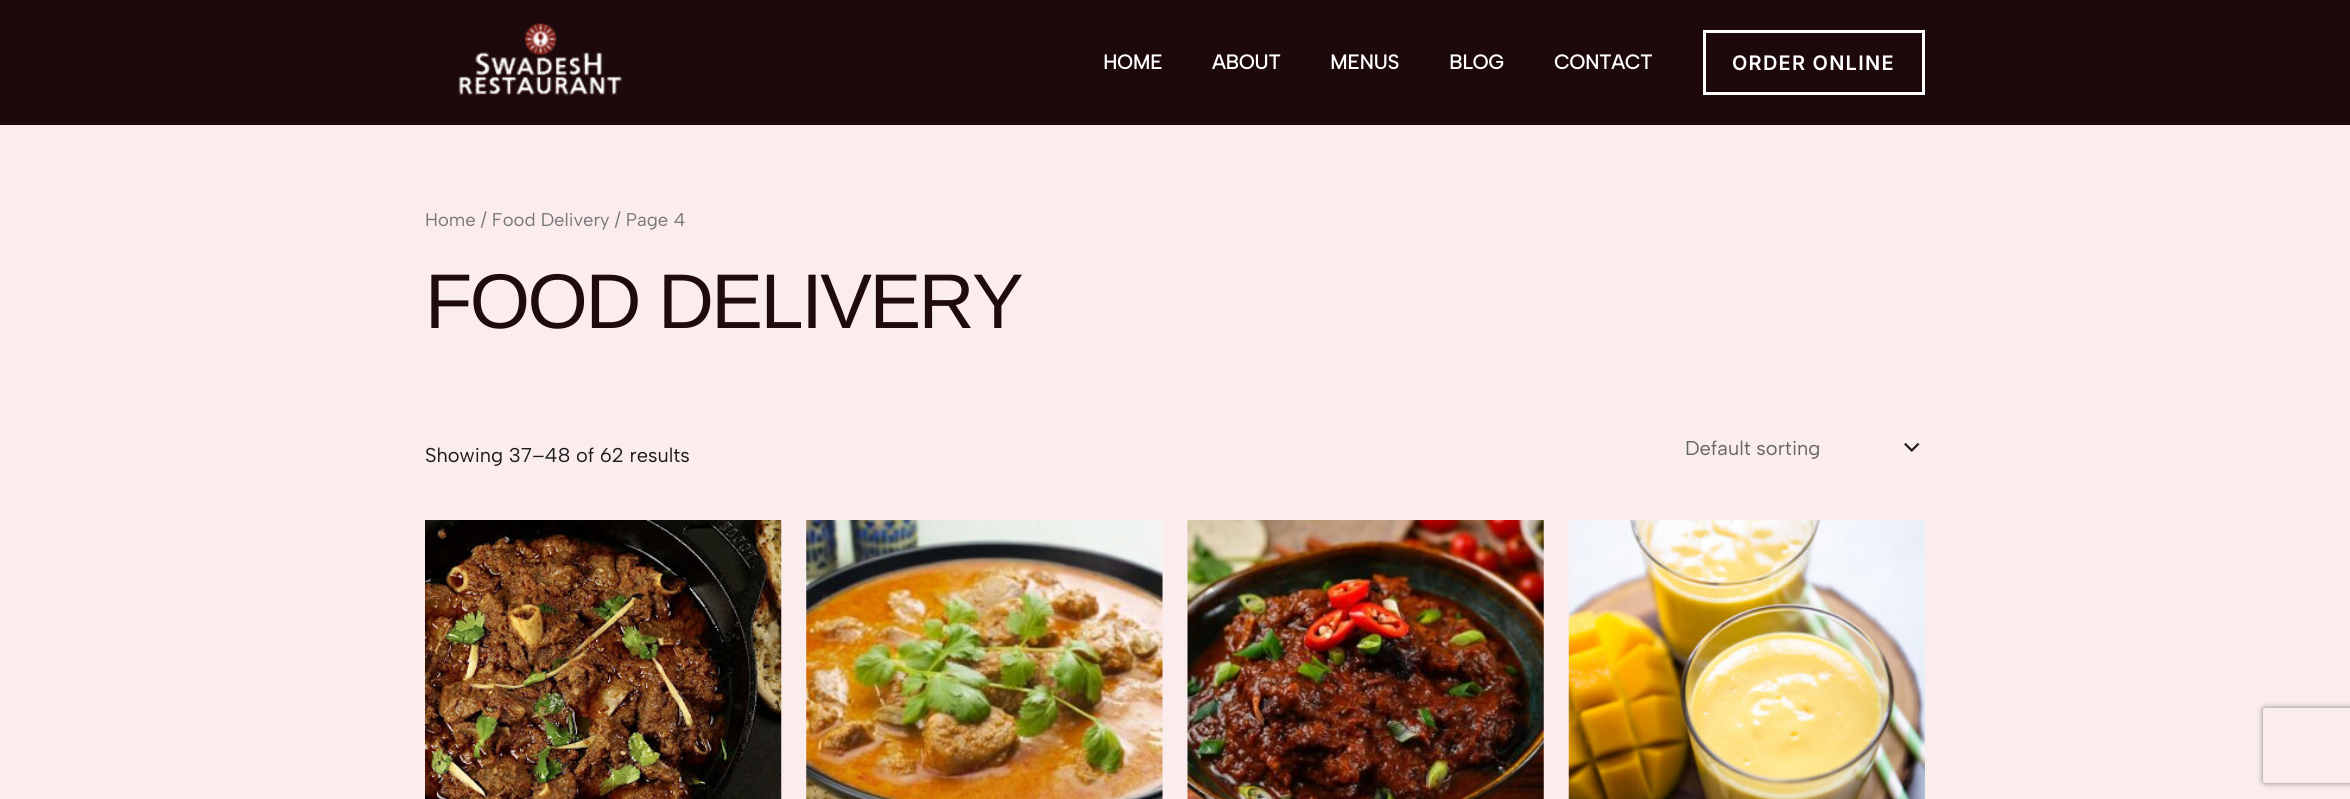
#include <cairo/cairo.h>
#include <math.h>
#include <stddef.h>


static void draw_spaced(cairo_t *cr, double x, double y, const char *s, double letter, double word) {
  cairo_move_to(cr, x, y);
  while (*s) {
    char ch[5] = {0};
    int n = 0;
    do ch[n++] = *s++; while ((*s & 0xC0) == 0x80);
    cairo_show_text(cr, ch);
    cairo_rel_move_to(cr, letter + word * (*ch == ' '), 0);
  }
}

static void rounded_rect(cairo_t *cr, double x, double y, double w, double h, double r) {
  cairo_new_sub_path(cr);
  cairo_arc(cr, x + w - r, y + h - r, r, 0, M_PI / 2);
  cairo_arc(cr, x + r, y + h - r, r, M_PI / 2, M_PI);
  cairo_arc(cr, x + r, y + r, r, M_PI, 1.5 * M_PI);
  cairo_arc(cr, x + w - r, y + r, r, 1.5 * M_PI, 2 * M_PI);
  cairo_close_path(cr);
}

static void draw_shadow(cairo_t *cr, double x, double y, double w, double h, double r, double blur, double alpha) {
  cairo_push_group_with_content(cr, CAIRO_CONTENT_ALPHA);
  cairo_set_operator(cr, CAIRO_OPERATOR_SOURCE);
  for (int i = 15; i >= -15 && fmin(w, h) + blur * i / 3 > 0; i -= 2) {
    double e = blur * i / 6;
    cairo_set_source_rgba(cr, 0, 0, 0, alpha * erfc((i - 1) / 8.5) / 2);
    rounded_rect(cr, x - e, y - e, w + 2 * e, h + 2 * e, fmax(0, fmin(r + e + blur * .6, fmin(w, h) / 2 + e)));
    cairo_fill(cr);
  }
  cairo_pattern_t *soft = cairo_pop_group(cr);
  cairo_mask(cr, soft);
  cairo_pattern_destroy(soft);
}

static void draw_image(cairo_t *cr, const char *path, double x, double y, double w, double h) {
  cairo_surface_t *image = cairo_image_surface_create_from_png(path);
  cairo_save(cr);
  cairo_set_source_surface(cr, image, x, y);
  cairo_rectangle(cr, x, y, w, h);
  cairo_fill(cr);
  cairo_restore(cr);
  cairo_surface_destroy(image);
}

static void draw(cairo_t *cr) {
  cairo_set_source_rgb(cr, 251 / 255.0, 236 / 255.0, 237 / 255.0);
  cairo_paint(cr);
  cairo_set_source_rgb(cr, 29 / 255.0, 9 / 255.0, 11 / 255.0);
  cairo_rectangle(cr, 0, 0, 2350, 125);
  cairo_fill(cr);
  draw_image(cr, "images/1.png", 458, 22, 165, 74);
  cairo_rectangle(cr, 1704.5, 31.5, 219, 62);
  cairo_set_source_rgb(cr, 1, 1, 1);
  cairo_set_line_width(cr, 3);
  cairo_stroke(cr);
  draw_image(cr, "images/2.png", 1904, 443, 16, 9);
  draw_image(cr, "images/3.png", 425, 520, 357, 279);
  draw_image(cr, "images/4.png", 806, 520, 357, 279);
  draw_image(cr, "images/5.png", 1187, 520, 357, 279);
  draw_image(cr, "images/6.png", 1568, 520, 357, 279);
  cairo_save(cr);
  cairo_set_fill_rule(cr, CAIRO_FILL_RULE_EVEN_ODD);
  cairo_new_path(cr);
  cairo_move_to(cr, 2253, 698);
  cairo_line_to(cr, 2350, 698);
  cairo_line_to(cr, 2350, 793);
  cairo_line_to(cr, 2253, 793);
  cairo_close_path(cr);
  cairo_move_to(cr, 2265.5, 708);
  cairo_line_to(cr, 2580.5, 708);
  cairo_curve_to(cr, 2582, 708, 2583, 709, 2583, 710.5);
  cairo_line_to(cr, 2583, 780.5);
  cairo_curve_to(cr, 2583, 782, 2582, 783, 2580.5, 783);
  cairo_line_to(cr, 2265.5, 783);
  cairo_curve_to(cr, 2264, 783, 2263, 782, 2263, 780.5);
  cairo_line_to(cr, 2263, 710.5);
  cairo_curve_to(cr, 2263, 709, 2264, 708, 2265.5, 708);
  cairo_close_path(cr);
  cairo_clip(cr);
  cairo_set_source_rgb(cr, 128 / 255.0, 128 / 255.0, 128 / 255.0);
  draw_shadow(cr, 2263, 708, 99, 75, 2.5, 3, 1);
  cairo_restore(cr);
  cairo_select_font_face(cr, "Albert Sans", CAIRO_FONT_SLANT_NORMAL, CAIRO_FONT_WEIGHT_BOLD);
  cairo_set_font_size(cr, 20);
  cairo_move_to(cr, 1103, 69);
  cairo_show_text(cr, "HOME");
  cairo_move_to(cr, 1212, 69);
  cairo_show_text(cr, "ABOUT");
  cairo_move_to(cr, 1330, 69);
  cairo_show_text(cr, "MENUS");
  cairo_move_to(cr, 1449, 69);
  cairo_show_text(cr, "BLOG");
  cairo_move_to(cr, 1554, 69);
  cairo_show_text(cr, "CONTACT");
  cairo_select_font_face(cr, "Inter SemiBold", CAIRO_FONT_SLANT_NORMAL, CAIRO_FONT_WEIGHT_NORMAL);
  draw_spaced(cr, 1732, 70, "ORDER ONLINE", 1.25, 0);
  cairo_select_font_face(cr, "Albert Sans", CAIRO_FONT_SLANT_NORMAL, CAIRO_FONT_WEIGHT_NORMAL);
  cairo_set_font_size(cr, 18.4);
  cairo_set_source_rgb(cr, 119 / 255.0, 119 / 255.0, 119 / 255.0);
  cairo_move_to(cr, 425, 226);
  cairo_show_text(cr, "Home / Food Delivery / Page 4");
  cairo_select_font_face(cr, "Liberation Sans", CAIRO_FONT_SLANT_NORMAL, CAIRO_FONT_WEIGHT_NORMAL);
  cairo_set_font_size(cr, 77.5);
  cairo_set_source_rgb(cr, 31 / 255.0, 10 / 255.0, 12 / 255.0);
  draw_spaced(cr, 425, 328, "FOOD DELIVERY", -2.5, 0);
  cairo_select_font_face(cr, "Albert Sans", CAIRO_FONT_SLANT_NORMAL, CAIRO_FONT_WEIGHT_NORMAL);
  cairo_set_font_size(cr, 20);
  cairo_set_source_rgb(cr, 28 / 255.0, 27 / 255.0, 27 / 255.0);
  cairo_move_to(cr, 425, 462);
  cairo_show_text(cr, "Showing 37–48 of 62 results");
  cairo_set_source_rgb(cr, 102 / 255.0, 102 / 255.0, 102 / 255.0);
  cairo_move_to(cr, 1685, 455);
  cairo_show_text(cr, "Default sorting");
}

int main(void) {
  cairo_surface_t *surface = cairo_image_surface_create(CAIRO_FORMAT_RGB24, 2350, 799);
  cairo_t *cr = cairo_create(surface);
  cairo_font_options_t *options = cairo_font_options_create();
  cairo_font_options_set_hint_metrics(options, CAIRO_HINT_METRICS_OFF);
  cairo_font_options_set_hint_style(options, CAIRO_HINT_STYLE_NONE);
  cairo_set_font_options(cr, options);
  cairo_set_miter_limit(cr, 4);
  draw(cr);
  cairo_surface_write_to_png(surface, "out.png");
  cairo_font_options_destroy(options);
  cairo_destroy(cr);
  cairo_surface_destroy(surface);
  return 0;
}
